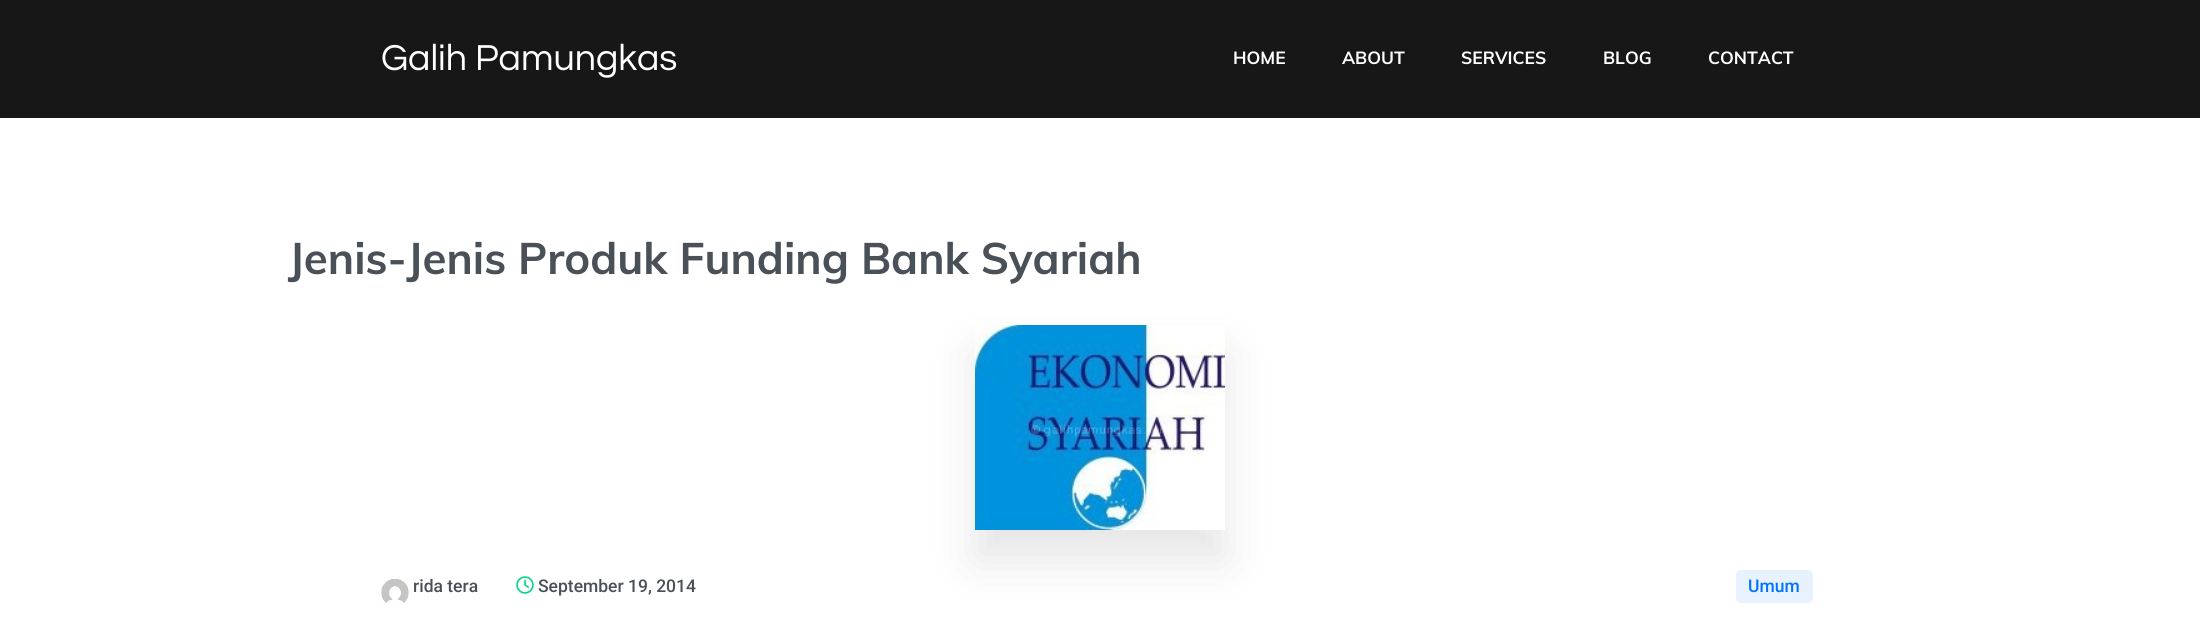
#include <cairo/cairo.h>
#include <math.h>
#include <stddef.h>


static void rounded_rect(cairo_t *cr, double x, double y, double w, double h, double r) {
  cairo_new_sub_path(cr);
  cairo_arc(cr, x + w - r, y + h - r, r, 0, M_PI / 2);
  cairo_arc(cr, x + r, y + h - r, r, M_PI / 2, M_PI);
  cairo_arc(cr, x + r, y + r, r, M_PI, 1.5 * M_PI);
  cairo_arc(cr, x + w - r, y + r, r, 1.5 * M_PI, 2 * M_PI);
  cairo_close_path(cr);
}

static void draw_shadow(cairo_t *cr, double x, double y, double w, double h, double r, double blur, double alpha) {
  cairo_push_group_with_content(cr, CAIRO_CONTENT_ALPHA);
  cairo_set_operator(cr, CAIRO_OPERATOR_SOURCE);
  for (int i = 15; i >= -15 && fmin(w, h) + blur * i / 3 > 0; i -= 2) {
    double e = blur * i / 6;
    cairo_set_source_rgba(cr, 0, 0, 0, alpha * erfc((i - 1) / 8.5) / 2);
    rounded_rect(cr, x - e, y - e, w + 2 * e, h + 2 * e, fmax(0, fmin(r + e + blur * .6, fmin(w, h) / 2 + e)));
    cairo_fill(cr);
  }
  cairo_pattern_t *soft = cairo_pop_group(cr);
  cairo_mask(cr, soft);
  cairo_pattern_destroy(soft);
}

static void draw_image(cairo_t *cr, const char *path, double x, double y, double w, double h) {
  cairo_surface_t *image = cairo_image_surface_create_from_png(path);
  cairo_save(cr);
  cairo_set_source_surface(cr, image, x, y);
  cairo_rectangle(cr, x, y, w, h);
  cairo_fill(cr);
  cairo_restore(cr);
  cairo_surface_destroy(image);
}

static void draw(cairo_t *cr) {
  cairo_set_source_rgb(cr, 1, 1, 1);
  cairo_paint(cr);
  cairo_set_source_rgb(cr, 23 / 255.0, 23 / 255.0, 23 / 255.0);
  cairo_rectangle(cr, 0, 0, 2200, 118);
  cairo_fill(cr);
  cairo_set_source_rgb(cr, 0, 0, 0);
  draw_shadow(cr, 975, 355, 250, 205, 0, 22.5, 0.1);
  draw_image(cr, "images/1.png", 975, 325, 250, 205);
  draw_image(cr, "images/2.png", 381, 579, 28, 24);
  draw_image(cr, "images/3.png", 516, 576, 18, 18);
  cairo_set_source_rgb(cr, 232 / 255.0, 242 / 255.0, 1);
  rounded_rect(cr, 1736, 570, 77, 33, 5);
  cairo_fill(cr);
  cairo_select_font_face(cr, "Questrial", CAIRO_FONT_SLANT_NORMAL, CAIRO_FONT_WEIGHT_NORMAL);
  cairo_set_font_size(cr, 37.5);
  cairo_set_source_rgb(cr, 1, 1, 1);
  cairo_move_to(cr, 381, 70);
  cairo_show_text(cr, "Galih Pamungkas");
  cairo_select_font_face(cr, "Muli", CAIRO_FONT_SLANT_NORMAL, CAIRO_FONT_WEIGHT_BOLD);
  cairo_set_font_size(cr, 17.5);
  cairo_move_to(cr, 1233, 64);
  cairo_show_text(cr, "HOME");
  cairo_move_to(cr, 1342, 64);
  cairo_show_text(cr, "ABOUT");
  cairo_move_to(cr, 1461, 64);
  cairo_show_text(cr, "SERVICES");
  cairo_move_to(cr, 1603, 64);
  cairo_show_text(cr, "BLOG");
  cairo_move_to(cr, 1708, 64);
  cairo_show_text(cr, "CONTACT");
  cairo_set_font_size(cr, 43.75);
  cairo_set_source_rgb(cr, 73 / 255.0, 80 / 255.0, 87 / 255.0);
  cairo_move_to(cr, 288, 274);
  cairo_show_text(cr, "Jenis-Jenis Produk Funding Bank Syariah");
  cairo_select_font_face(cr, "Roboto Medium", CAIRO_FONT_SLANT_NORMAL, CAIRO_FONT_WEIGHT_NORMAL);
  cairo_set_font_size(cr, 17.5);
  cairo_move_to(cr, 413, 592);
  cairo_show_text(cr, "rida tera");
  cairo_move_to(cr, 538, 592);
  cairo_show_text(cr, "September 19, 2014");
  cairo_set_source_rgb(cr, 0, 114 / 255.0, 1);
  cairo_move_to(cr, 1748, 592);
  cairo_show_text(cr, "Umum");
}

int main(void) {
  cairo_surface_t *surface = cairo_image_surface_create(CAIRO_FORMAT_RGB24, 2200, 627);
  cairo_t *cr = cairo_create(surface);
  cairo_font_options_t *options = cairo_font_options_create();
  cairo_font_options_set_hint_metrics(options, CAIRO_HINT_METRICS_OFF);
  cairo_font_options_set_hint_style(options, CAIRO_HINT_STYLE_NONE);
  cairo_set_font_options(cr, options);
  cairo_set_miter_limit(cr, 4);
  draw(cr);
  cairo_surface_write_to_png(surface, "out.png");
  cairo_font_options_destroy(options);
  cairo_destroy(cr);
  cairo_surface_destroy(surface);
  return 0;
}
